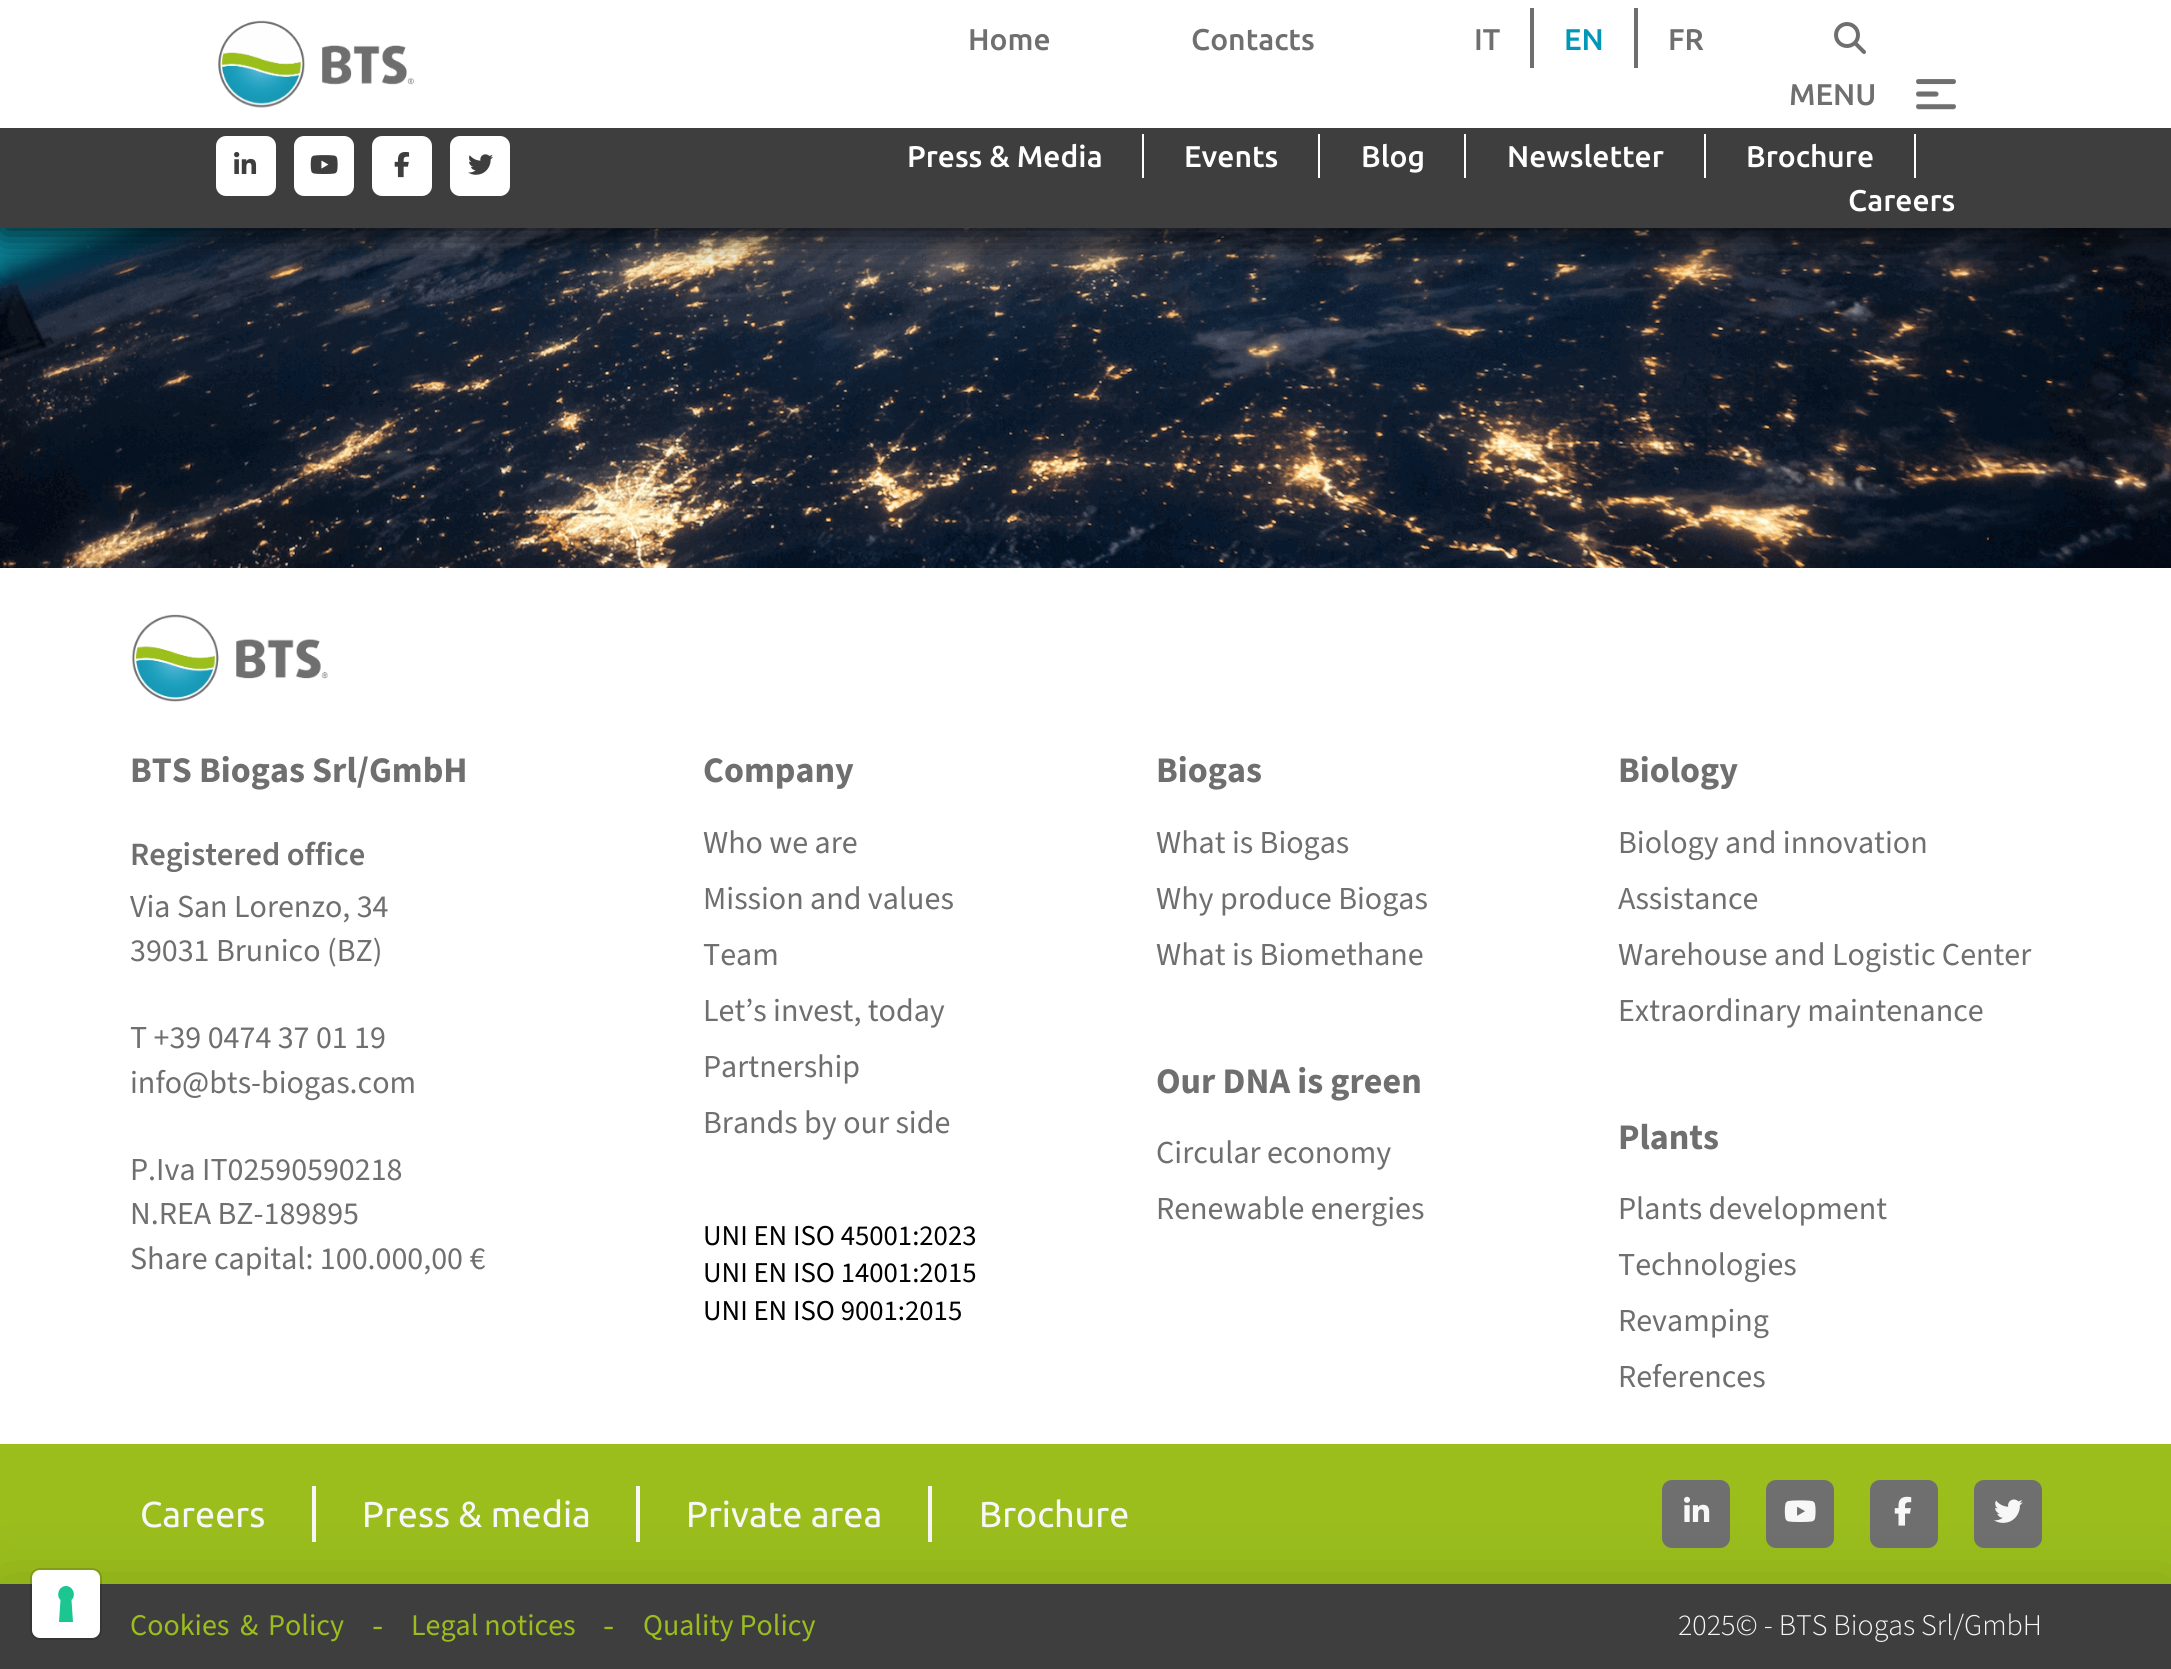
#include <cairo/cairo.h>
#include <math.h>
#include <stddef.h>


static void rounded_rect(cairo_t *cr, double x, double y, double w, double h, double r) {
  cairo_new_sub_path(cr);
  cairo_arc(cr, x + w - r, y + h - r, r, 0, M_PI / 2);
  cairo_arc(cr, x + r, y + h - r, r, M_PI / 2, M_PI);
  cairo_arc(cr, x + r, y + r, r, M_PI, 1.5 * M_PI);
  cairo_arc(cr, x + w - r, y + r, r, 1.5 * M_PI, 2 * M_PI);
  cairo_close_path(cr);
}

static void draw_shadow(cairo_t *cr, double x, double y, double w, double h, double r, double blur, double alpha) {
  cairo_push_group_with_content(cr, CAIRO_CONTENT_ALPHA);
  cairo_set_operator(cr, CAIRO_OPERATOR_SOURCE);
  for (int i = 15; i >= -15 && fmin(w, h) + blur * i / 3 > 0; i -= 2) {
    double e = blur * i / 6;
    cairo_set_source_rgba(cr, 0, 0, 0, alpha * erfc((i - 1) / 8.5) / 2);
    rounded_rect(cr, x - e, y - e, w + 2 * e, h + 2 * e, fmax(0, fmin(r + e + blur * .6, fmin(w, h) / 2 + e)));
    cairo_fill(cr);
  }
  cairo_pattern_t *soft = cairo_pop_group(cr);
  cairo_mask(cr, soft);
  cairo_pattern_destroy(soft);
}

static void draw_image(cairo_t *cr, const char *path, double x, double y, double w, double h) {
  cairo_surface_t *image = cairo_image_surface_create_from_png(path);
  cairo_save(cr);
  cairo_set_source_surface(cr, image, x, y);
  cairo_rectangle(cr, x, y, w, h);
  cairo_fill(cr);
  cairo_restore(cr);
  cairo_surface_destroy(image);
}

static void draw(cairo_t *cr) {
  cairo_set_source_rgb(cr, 1, 1, 1);
  cairo_paint(cr);
  cairo_set_source_rgb(cr, 155 / 255.0, 190 / 255.0, 29 / 255.0);
  cairo_rectangle(cr, 0, 1444, 2171, 140);
  cairo_fill(cr);
  cairo_set_source_rgb(cr, 247 / 255.0, 247 / 255.0, 247 / 255.0);
  cairo_rectangle(cr, 312, 1486, 4, 56);
  cairo_fill(cr);
  cairo_rectangle(cr, 636, 1486, 4, 56);
  cairo_fill(cr);
  cairo_rectangle(cr, 928, 1486, 4, 56);
  cairo_fill(cr);
  cairo_set_source_rgb(cr, 112 / 255.0, 111 / 255.0, 111 / 255.0);
  rounded_rect(cr, 1662, 1480, 68, 68, 10);
  cairo_fill(cr);
  draw_image(cr, "images/10.png", 1684, 1496, 26, 26);
  rounded_rect(cr, 1766, 1480, 68, 68, 10);
  cairo_fill(cr);
  draw_image(cr, "images/11.png", 1784, 1500, 32, 22);
  rounded_rect(cr, 1870, 1480, 68, 68, 10);
  cairo_fill(cr);
  draw_image(cr, "images/12.png", 1894, 1496, 18, 30);
  rounded_rect(cr, 1974, 1480, 68, 68, 10);
  cairo_fill(cr);
  draw_image(cr, "images/13.png", 1994, 1499, 29, 24);
  cairo_set_source_rgb(cr, 0, 0, 0);
  draw_shadow(cr, 0, 1590, 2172, 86, 0, 36, 0.15);
  cairo_set_source_rgb(cr, 62 / 255.0, 62 / 255.0, 62 / 255.0);
  cairo_rectangle(cr, 0, 1584, 2171, 85);
  cairo_fill(cr);
  rounded_rect(cr, 31, 1569, 70, 70, 9);
  cairo_set_source_rgba(cr, 0, 0, 0, 0.15);
  cairo_stroke(cr);
  cairo_set_source_rgb(cr, 1, 1, 1);
  rounded_rect(cr, 32, 1570, 68, 68, 8);
  cairo_fill(cr);
  cairo_set_source_rgb(cr, 28 / 255.0, 198 / 255.0, 145 / 255.0);
  cairo_set_fill_rule(cr, CAIRO_FILL_RULE_EVEN_ODD);
  cairo_new_path(cr);
  cairo_move_to(cr, 66, 1586);
  cairo_curve_to(cr, 73, 1586, 76.5, 1595.5, 71.5, 1600);
  cairo_line_to(cr, 73, 1622);
  cairo_line_to(cr, 59, 1622);
  cairo_line_to(cr, 60.5, 1600);
  cairo_curve_to(cr, 55.5, 1595.5, 59, 1586, 66, 1586);
  cairo_close_path(cr);
  cairo_fill(cr);
  draw_image(cr, "images/8.png", 0, 228, 2171, 340);
  cairo_set_source_rgb(cr, 0, 0, 0);
  draw_shadow(cr, 0, 6, 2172, 228, 0, 18, 0.8);
  cairo_set_source_rgb(cr, 1, 1, 1);
  cairo_rectangle(cr, 0, 0, 2171, 128);
  cairo_fill(cr);
  draw_image(cr, "images/1.png", 218, 20, 196, 88);
  cairo_set_source_rgb(cr, 112 / 255.0, 111 / 255.0, 111 / 255.0);
  cairo_rectangle(cr, 1530, 8, 4, 60);
  cairo_fill(cr);
  cairo_rectangle(cr, 1634, 8, 4, 60);
  cairo_fill(cr);
  draw_image(cr, "images/2.png", 1834, 22, 32, 32);
  draw_image(cr, "images/3.png", 1916, 79, 40, 31);
  cairo_set_source_rgb(cr, 62 / 255.0, 62 / 255.0, 62 / 255.0);
  cairo_rectangle(cr, 0, 128, 2171, 100);
  cairo_fill(cr);
  cairo_set_source_rgb(cr, 1, 1, 1);
  rounded_rect(cr, 216, 136, 60, 60, 10);
  cairo_fill(cr);
  draw_image(cr, "images/4.png", 234, 152, 23, 22);
  rounded_rect(cr, 294, 136, 60, 60, 10);
  cairo_fill(cr);
  draw_image(cr, "images/5.png", 310, 155, 28, 19);
  rounded_rect(cr, 372, 136, 60, 60, 10);
  cairo_fill(cr);
  draw_image(cr, "images/6.png", 394, 151, 16, 27);
  rounded_rect(cr, 450, 136, 60, 60, 10);
  cairo_fill(cr);
  draw_image(cr, "images/7.png", 468, 154, 25, 21);
  cairo_rectangle(cr, 1142, 134, 2, 44);
  cairo_fill(cr);
  cairo_rectangle(cr, 1318, 134, 2, 44);
  cairo_fill(cr);
  cairo_rectangle(cr, 1464, 134, 2, 44);
  cairo_fill(cr);
  cairo_rectangle(cr, 1704, 134, 2, 44);
  cairo_fill(cr);
  cairo_rectangle(cr, 1914, 134, 2, 44);
  cairo_fill(cr);
  draw_image(cr, "images/9.png", 131, 614, 198, 88);
  cairo_select_font_face(cr, "Ubuntu Medium", CAIRO_FONT_SLANT_NORMAL, CAIRO_FONT_WEIGHT_NORMAL);
  cairo_set_font_size(cr, 30);
  cairo_set_source_rgb(cr, 112 / 255.0, 111 / 255.0, 111 / 255.0);
  cairo_move_to(cr, 968, 50);
  cairo_show_text(cr, "Home");
  cairo_move_to(cr, 1191, 50);
  cairo_show_text(cr, "Contacts");
  cairo_move_to(cr, 1474, 50);
  cairo_show_text(cr, "IT");
  cairo_set_source_rgb(cr, 0, 152 / 255.0, 182 / 255.0);
  cairo_move_to(cr, 1564, 50);
  cairo_show_text(cr, "EN");
  cairo_set_source_rgb(cr, 112 / 255.0, 111 / 255.0, 111 / 255.0);
  cairo_move_to(cr, 1668, 50);
  cairo_show_text(cr, "FR");
  cairo_move_to(cr, 1789, 105);
  cairo_show_text(cr, "MENU");
  cairo_set_source_rgb(cr, 1, 1, 1);
  cairo_move_to(cr, 907, 167);
  cairo_show_text(cr, "Press & Media");
  cairo_move_to(cr, 1184, 167);
  cairo_show_text(cr, "Events");
  cairo_move_to(cr, 1361, 167);
  cairo_show_text(cr, "Blog");
  cairo_move_to(cr, 1507, 167);
  cairo_show_text(cr, "Newsletter");
  cairo_move_to(cr, 1746, 167);
  cairo_show_text(cr, "Brochure");
  cairo_move_to(cr, 1848, 211);
  cairo_show_text(cr, "Careers");
  cairo_select_font_face(cr, "Source Sans 3", CAIRO_FONT_SLANT_NORMAL, CAIRO_FONT_WEIGHT_BOLD);
  cairo_set_font_size(cr, 36);
  cairo_set_source_rgb(cr, 112 / 255.0, 111 / 255.0, 111 / 255.0);
  cairo_move_to(cr, 130, 782);
  cairo_show_text(cr, "BTS Biogas Srl/GmbH");
  cairo_select_font_face(cr, "Source Sans 3 SemiBold", CAIRO_FONT_SLANT_NORMAL, CAIRO_FONT_WEIGHT_NORMAL);
  cairo_set_font_size(cr, 32.5);
  cairo_move_to(cr, 130, 865);
  cairo_show_text(cr, "Registered office");
  cairo_select_font_face(cr, "Source Sans 3", CAIRO_FONT_SLANT_NORMAL, CAIRO_FONT_WEIGHT_NORMAL);
  cairo_set_font_size(cr, 32);
  cairo_move_to(cr, 130, 917);
  cairo_show_text(cr, "Via San Lorenzo, 34");
  cairo_move_to(cr, 130, 961);
  cairo_show_text(cr, "39031 Brunico (BZ)");
  cairo_move_to(cr, 130, 1048);
  cairo_show_text(cr, "T +39 0474 37 01 19");
  cairo_move_to(cr, 130, 1093);
  cairo_show_text(cr, "info@bts-biogas.com");
  cairo_move_to(cr, 130, 1180);
  cairo_show_text(cr, "P.Iva IT02590590218");
  cairo_move_to(cr, 130, 1224);
  cairo_show_text(cr, "N.REA BZ-189895");
  cairo_move_to(cr, 130, 1269);
  cairo_show_text(cr, "Share capital: 100.000,00 €");
  cairo_select_font_face(cr, "Source Sans 3", CAIRO_FONT_SLANT_NORMAL, CAIRO_FONT_WEIGHT_BOLD);
  cairo_set_font_size(cr, 36);
  cairo_move_to(cr, 703, 782);
  cairo_show_text(cr, "Company");
  cairo_select_font_face(cr, "Source Sans 3", CAIRO_FONT_SLANT_NORMAL, CAIRO_FONT_WEIGHT_NORMAL);
  cairo_set_font_size(cr, 32);
  cairo_move_to(cr, 703, 853);
  cairo_show_text(cr, "Who we are");
  cairo_move_to(cr, 703, 909);
  cairo_show_text(cr, "Mission and values");
  cairo_move_to(cr, 703, 965);
  cairo_show_text(cr, "Team");
  cairo_move_to(cr, 703, 1021);
  cairo_show_text(cr, "Let’s invest, today");
  cairo_move_to(cr, 703, 1077);
  cairo_show_text(cr, "Partnership");
  cairo_move_to(cr, 703, 1133);
  cairo_show_text(cr, "Brands by our side");
  cairo_set_font_size(cr, 28.75);
  cairo_set_source_rgb(cr, 0, 0, 0);
  cairo_move_to(cr, 703, 1245);
  cairo_show_text(cr, "UNI EN ISO 45001:2023");
  cairo_move_to(cr, 703, 1282);
  cairo_show_text(cr, "UNI EN ISO 14001:2015");
  cairo_move_to(cr, 703, 1320);
  cairo_show_text(cr, "UNI EN ISO 9001:2015");
  cairo_select_font_face(cr, "Source Sans 3", CAIRO_FONT_SLANT_NORMAL, CAIRO_FONT_WEIGHT_BOLD);
  cairo_set_font_size(cr, 36);
  cairo_set_source_rgb(cr, 112 / 255.0, 111 / 255.0, 111 / 255.0);
  cairo_move_to(cr, 1156, 782);
  cairo_show_text(cr, "Biogas");
  cairo_select_font_face(cr, "Source Sans 3", CAIRO_FONT_SLANT_NORMAL, CAIRO_FONT_WEIGHT_NORMAL);
  cairo_set_font_size(cr, 32);
  cairo_move_to(cr, 1156, 853);
  cairo_show_text(cr, "What is Biogas");
  cairo_move_to(cr, 1156, 909);
  cairo_show_text(cr, "Why produce Biogas");
  cairo_move_to(cr, 1156, 965);
  cairo_show_text(cr, "What is Biomethane");
  cairo_select_font_face(cr, "Source Sans 3", CAIRO_FONT_SLANT_NORMAL, CAIRO_FONT_WEIGHT_BOLD);
  cairo_set_font_size(cr, 36);
  cairo_move_to(cr, 1156, 1093);
  cairo_show_text(cr, "Our DNA is green");
  cairo_select_font_face(cr, "Source Sans 3", CAIRO_FONT_SLANT_NORMAL, CAIRO_FONT_WEIGHT_NORMAL);
  cairo_set_font_size(cr, 32);
  cairo_move_to(cr, 1156, 1163);
  cairo_show_text(cr, "Circular economy");
  cairo_move_to(cr, 1156, 1219);
  cairo_show_text(cr, "Renewable energies");
  cairo_select_font_face(cr, "Source Sans 3", CAIRO_FONT_SLANT_NORMAL, CAIRO_FONT_WEIGHT_BOLD);
  cairo_set_font_size(cr, 36);
  cairo_move_to(cr, 1618, 782);
  cairo_show_text(cr, "Biology");
  cairo_select_font_face(cr, "Source Sans 3", CAIRO_FONT_SLANT_NORMAL, CAIRO_FONT_WEIGHT_NORMAL);
  cairo_set_font_size(cr, 32);
  cairo_move_to(cr, 1618, 853);
  cairo_show_text(cr, "Biology and innovation");
  cairo_move_to(cr, 1618, 909);
  cairo_show_text(cr, "Assistance");
  cairo_move_to(cr, 1618, 965);
  cairo_show_text(cr, "Warehouse and Logistic Center");
  cairo_move_to(cr, 1618, 1021);
  cairo_show_text(cr, "Extraordinary maintenance");
  cairo_select_font_face(cr, "Source Sans 3", CAIRO_FONT_SLANT_NORMAL, CAIRO_FONT_WEIGHT_BOLD);
  cairo_set_font_size(cr, 36);
  cairo_move_to(cr, 1618, 1149);
  cairo_show_text(cr, "Plants");
  cairo_select_font_face(cr, "Source Sans 3", CAIRO_FONT_SLANT_NORMAL, CAIRO_FONT_WEIGHT_NORMAL);
  cairo_set_font_size(cr, 32);
  cairo_move_to(cr, 1618, 1219);
  cairo_show_text(cr, "Plants development");
  cairo_move_to(cr, 1618, 1275);
  cairo_show_text(cr, "Technologies");
  cairo_move_to(cr, 1618, 1331);
  cairo_show_text(cr, "Revamping");
  cairo_move_to(cr, 1618, 1387);
  cairo_show_text(cr, "References");
  cairo_select_font_face(cr, "Ubuntu", CAIRO_FONT_SLANT_NORMAL, CAIRO_FONT_WEIGHT_NORMAL);
  cairo_set_font_size(cr, 36);
  cairo_set_source_rgb(cr, 247 / 255.0, 247 / 255.0, 247 / 255.0);
  cairo_move_to(cr, 140, 1527);
  cairo_show_text(cr, "Careers");
  cairo_move_to(cr, 362, 1527);
  cairo_show_text(cr, "Press & media");
  cairo_move_to(cr, 686, 1527);
  cairo_show_text(cr, "Private area");
  cairo_move_to(cr, 979, 1527);
  cairo_show_text(cr, "Brochure");
  cairo_select_font_face(cr, "Source Sans 3", CAIRO_FONT_SLANT_NORMAL, CAIRO_FONT_WEIGHT_NORMAL);
  cairo_set_font_size(cr, 30);
  cairo_set_source_rgb(cr, 155 / 255.0, 190 / 255.0, 29 / 255.0);
  cairo_move_to(cr, 130, 1635);
  cairo_show_text(cr, "Cookies");
  cairo_move_to(cr, 240, 1635);
  cairo_show_text(cr, "&");
  cairo_move_to(cr, 268, 1635);
  cairo_show_text(cr, "Policy");
  cairo_set_font_size(cr, 36);
  cairo_move_to(cr, 372, 1637);
  cairo_show_text(cr, "-");
  cairo_set_font_size(cr, 30);
  cairo_move_to(cr, 411, 1635);
  cairo_show_text(cr, "Legal notices");
  cairo_set_font_size(cr, 36);
  cairo_move_to(cr, 603, 1637);
  cairo_show_text(cr, "-");
  cairo_set_font_size(cr, 30);
  cairo_move_to(cr, 643, 1635);
  cairo_show_text(cr, "Quality Policy");
  cairo_select_font_face(cr, "Source Sans 3 Light", CAIRO_FONT_SLANT_NORMAL, CAIRO_FONT_WEIGHT_NORMAL);
  cairo_set_source_rgb(cr, 247 / 255.0, 247 / 255.0, 247 / 255.0);
  cairo_move_to(cr, 1678, 1635);
  cairo_show_text(cr, "2025© - BTS Biogas Srl/GmbH");
}

int main(void) {
  cairo_surface_t *surface = cairo_image_surface_create(CAIRO_FORMAT_RGB24, 2171, 1669);
  cairo_t *cr = cairo_create(surface);
  cairo_font_options_t *options = cairo_font_options_create();
  cairo_font_options_set_hint_metrics(options, CAIRO_HINT_METRICS_OFF);
  cairo_font_options_set_hint_style(options, CAIRO_HINT_STYLE_NONE);
  cairo_set_font_options(cr, options);
  cairo_set_miter_limit(cr, 4);
  draw(cr);
  cairo_surface_write_to_png(surface, "out.png");
  cairo_font_options_destroy(options);
  cairo_destroy(cr);
  cairo_surface_destroy(surface);
  return 0;
}
